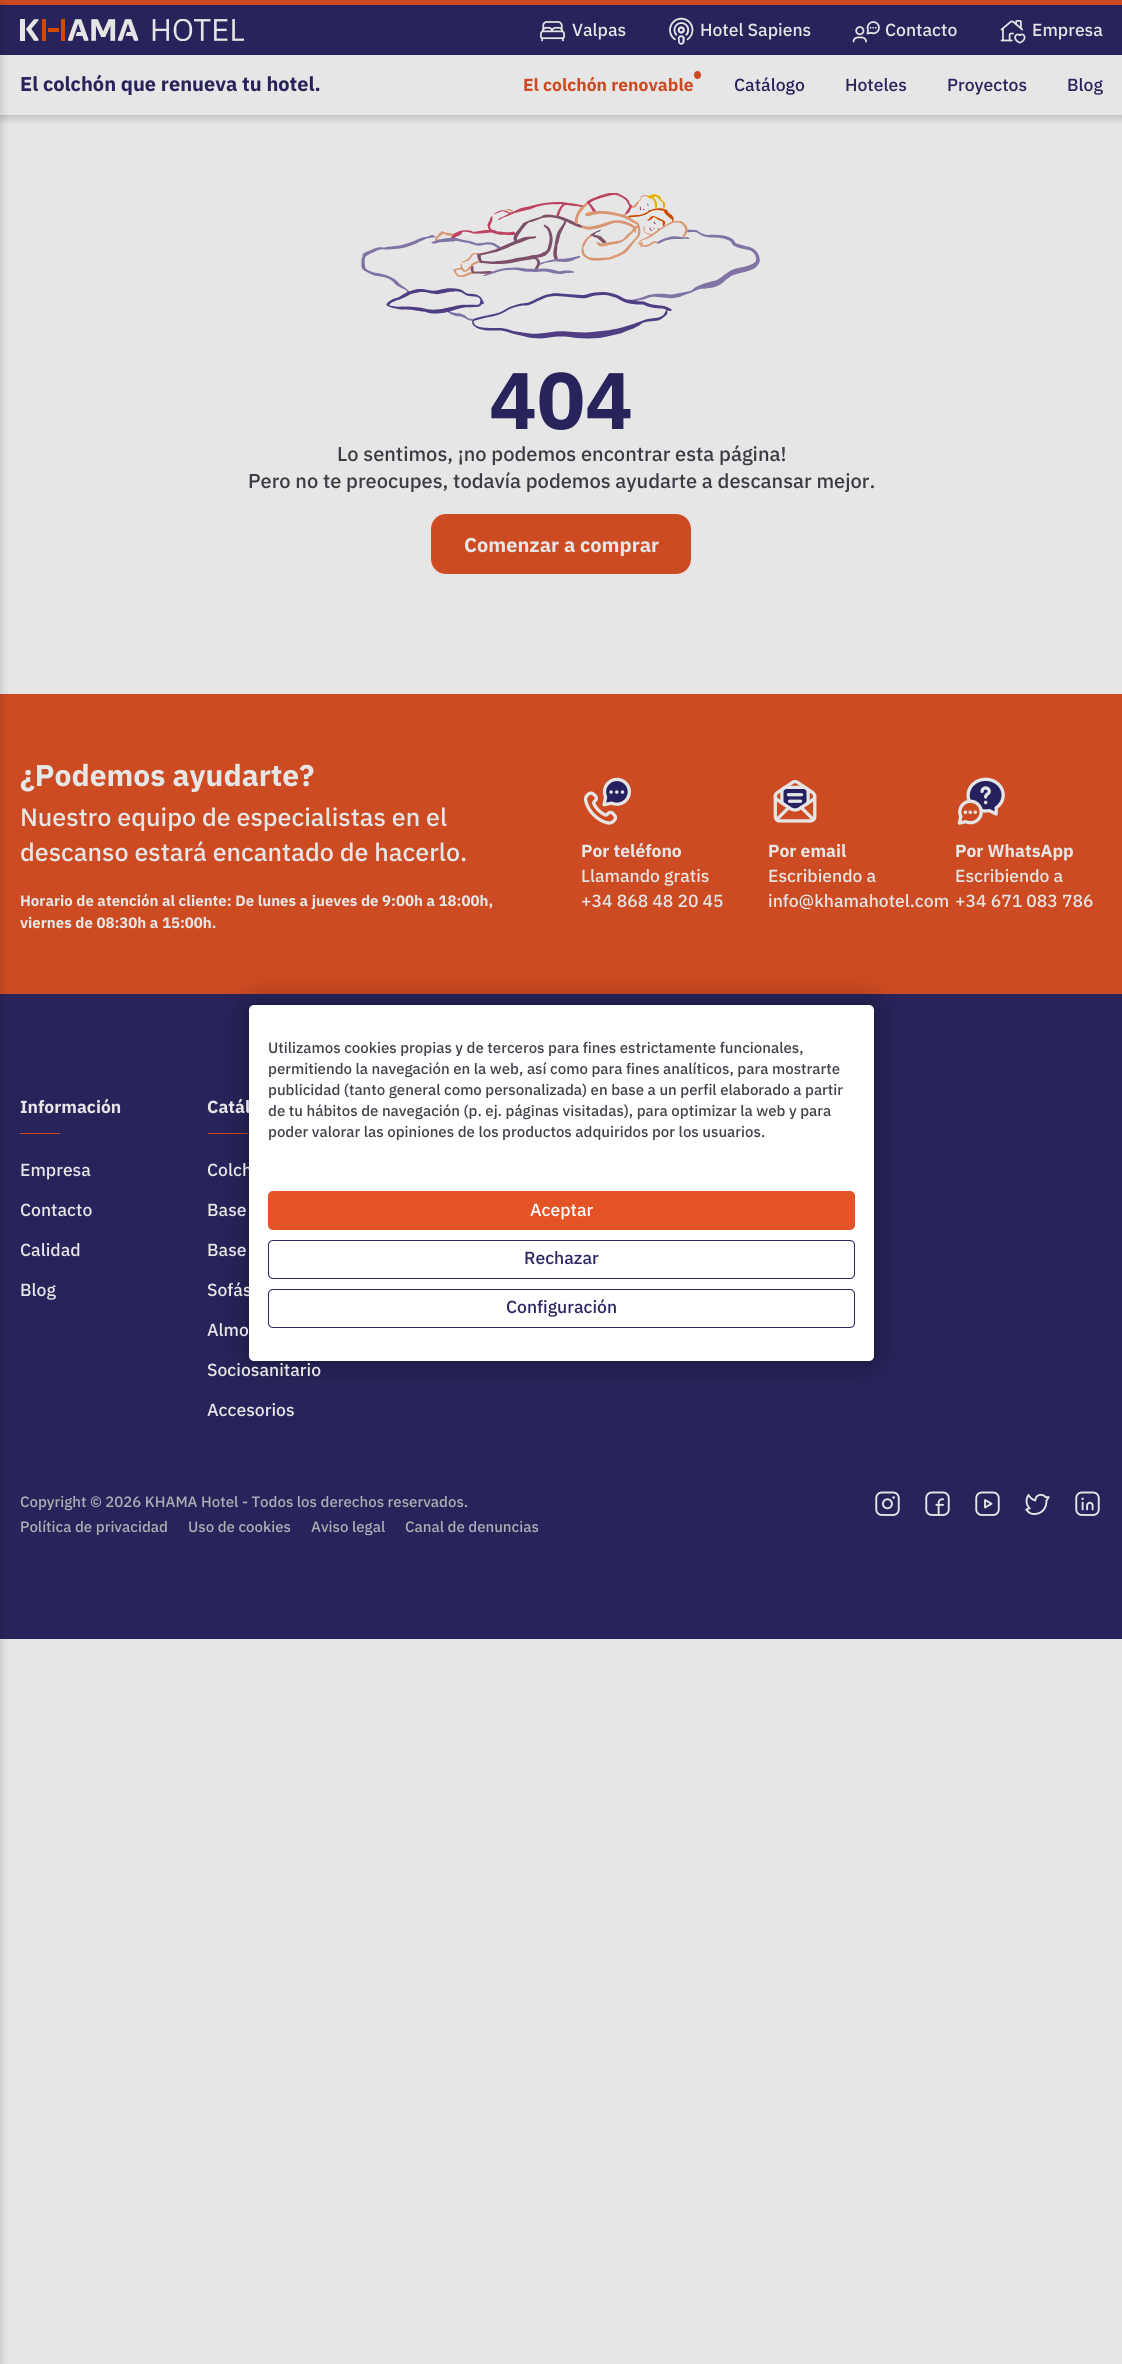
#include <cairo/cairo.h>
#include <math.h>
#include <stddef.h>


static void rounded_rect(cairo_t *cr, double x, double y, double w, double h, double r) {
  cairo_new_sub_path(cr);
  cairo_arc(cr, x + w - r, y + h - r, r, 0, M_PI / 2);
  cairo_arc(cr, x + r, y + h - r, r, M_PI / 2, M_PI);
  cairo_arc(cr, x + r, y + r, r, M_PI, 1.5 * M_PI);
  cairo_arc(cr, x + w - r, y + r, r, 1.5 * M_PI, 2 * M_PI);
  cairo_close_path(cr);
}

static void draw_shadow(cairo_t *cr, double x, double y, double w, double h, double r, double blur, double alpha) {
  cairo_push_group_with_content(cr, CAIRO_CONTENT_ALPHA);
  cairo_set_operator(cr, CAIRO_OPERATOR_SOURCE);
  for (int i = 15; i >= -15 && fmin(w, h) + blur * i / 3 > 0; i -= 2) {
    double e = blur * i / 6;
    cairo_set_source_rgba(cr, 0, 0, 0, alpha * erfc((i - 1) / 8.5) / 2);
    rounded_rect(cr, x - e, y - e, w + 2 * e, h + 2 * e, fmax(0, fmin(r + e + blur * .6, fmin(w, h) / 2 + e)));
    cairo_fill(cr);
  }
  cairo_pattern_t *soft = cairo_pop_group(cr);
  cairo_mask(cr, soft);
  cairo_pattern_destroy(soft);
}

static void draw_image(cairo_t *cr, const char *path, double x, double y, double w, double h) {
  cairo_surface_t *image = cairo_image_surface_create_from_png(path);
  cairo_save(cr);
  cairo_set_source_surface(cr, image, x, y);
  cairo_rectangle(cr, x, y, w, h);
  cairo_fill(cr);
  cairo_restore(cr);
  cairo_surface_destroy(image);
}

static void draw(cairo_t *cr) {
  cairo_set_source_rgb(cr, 230 / 255.0, 230 / 255.0, 230 / 255.0);
  cairo_paint(cr);
  cairo_save(cr);
  cairo_rectangle(cr, 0, 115, 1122, 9);
  cairo_clip(cr);
  cairo_set_source_rgb(cr, 0, 0, 0);
  draw_shadow(cr, 0, 3, 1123, 115, 0, 5, 0.2);
  cairo_restore(cr);
  cairo_set_source_rgb(cr, 205 / 255.0, 75 / 255.0, 34 / 255.0);
  cairo_rectangle(cr, 0, 0, 1122, 5);
  cairo_fill(cr);
  cairo_set_source_rgb(cr, 40 / 255.0, 35 / 255.0, 90 / 255.0);
  cairo_rectangle(cr, 0, 5, 1122, 50);
  cairo_fill(cr);
  cairo_set_source_rgb(cr, 205 / 255.0, 75 / 255.0, 34 / 255.0);
  cairo_rectangle(cr, 0, 694, 1122, 300);
  cairo_fill(cr);
  cairo_set_source_rgb(cr, 40 / 255.0, 35 / 255.0, 90 / 255.0);
  cairo_rectangle(cr, 0, 994, 1122, 645);
  cairo_fill(cr);
  cairo_set_source_rgb(cr, 0, 0, 0);
  draw_shadow(cr, -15, 3, 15, 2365, 0, 5, 0.2);
  draw_image(cr, "images/1.png", 20, 19, 224, 22);
  draw_image(cr, "images/2.png", 540, 21, 25, 21);
  draw_image(cr, "images/3.png", 669, 17, 25, 28);
  draw_image(cr, "images/4.png", 852, 21, 28, 22);
  draw_image(cr, "images/5.png", 1000, 20, 26, 24);
  cairo_set_source_rgb(cr, 205 / 255.0, 75 / 255.0, 34 / 255.0);
  rounded_rect(cr, 694, 71, 7, 8, 3.5);
  cairo_fill(cr);
  draw_image(cr, "images/6.png", 361, 193, 399, 146);
  rounded_rect(cr, 432.5, 515.5, 257, 57, 13.5);
  cairo_fill_preserve(cr);
  cairo_set_line_width(cr, 3);
  cairo_stroke(cr);
  draw_image(cr, "images/7.png", 583, 777, 48, 48);
  draw_image(cr, "images/8.png", 773, 779, 44, 44);
  draw_image(cr, "images/9.png", 957, 777, 48, 48);
  cairo_rectangle(cr, 20, 1133, 40, 1);
  cairo_fill(cr);
  cairo_rectangle(cr, 208, 1133, 40, 1);
  cairo_fill(cr);
  draw_image(cr, "images/10.png", 875, 1491, 25, 25);
  draw_image(cr, "images/11.png", 925, 1491, 25, 25);
  draw_image(cr, "images/12.png", 975, 1491, 25, 25);
  draw_image(cr, "images/13.png", 1025, 1493, 25, 22);
  draw_image(cr, "images/14.png", 1075, 1491, 25, 25);
  cairo_set_source_rgb(cr, 0, 0, 0);
  draw_shadow(cr, 249, 1005, 625, 356, 5, 15, 0.4);
  cairo_select_font_face(cr, "IBM Plex Sans Medium", CAIRO_FONT_SLANT_NORMAL, CAIRO_FONT_WEIGHT_NORMAL);
  cairo_set_font_size(cr, 17.5);
  cairo_set_source_rgb(cr, 230 / 255.0, 230 / 255.0, 230 / 255.0);
  cairo_move_to(cr, 572, 36);
  cairo_show_text(cr, "Valpas");
  cairo_move_to(cr, 700, 36);
  cairo_show_text(cr, "Hotel Sapiens");
  cairo_move_to(cr, 885, 36);
  cairo_show_text(cr, "Contacto");
  cairo_move_to(cr, 1032, 36);
  cairo_show_text(cr, "Empresa");
  cairo_select_font_face(cr, "IBM Plex Sans", CAIRO_FONT_SLANT_NORMAL, CAIRO_FONT_WEIGHT_BOLD);
  cairo_set_font_size(cr, 20);
  cairo_set_source_rgb(cr, 40 / 255.0, 35 / 255.0, 90 / 255.0);
  cairo_move_to(cr, 20, 91);
  cairo_show_text(cr, "El colchón que renueva tu hotel.");
  cairo_set_font_size(cr, 17.5);
  cairo_set_source_rgb(cr, 205 / 255.0, 75 / 255.0, 34 / 255.0);
  cairo_move_to(cr, 523, 91);
  cairo_show_text(cr, "El colchón renovable");
  cairo_select_font_face(cr, "IBM Plex Sans Medium", CAIRO_FONT_SLANT_NORMAL, CAIRO_FONT_WEIGHT_NORMAL);
  cairo_set_source_rgb(cr, 40 / 255.0, 35 / 255.0, 90 / 255.0);
  cairo_move_to(cr, 734, 91);
  cairo_show_text(cr, "Catálogo");
  cairo_move_to(cr, 845, 91);
  cairo_show_text(cr, "Hoteles");
  cairo_move_to(cr, 947, 91);
  cairo_show_text(cr, "Proyectos");
  cairo_move_to(cr, 1067, 91);
  cairo_show_text(cr, "Blog");
  cairo_select_font_face(cr, "IBM Plex Sans", CAIRO_FONT_SLANT_NORMAL, CAIRO_FONT_WEIGHT_BOLD);
  cairo_set_font_size(cr, 80);
  cairo_move_to(cr, 489, 429);
  cairo_show_text(cr, "404");
  cairo_select_font_face(cr, "IBM Plex Sans Medium", CAIRO_FONT_SLANT_NORMAL, CAIRO_FONT_WEIGHT_NORMAL);
  cairo_set_font_size(cr, 20);
  cairo_set_source_rgb(cr, 58 / 255.0, 59 / 255.0, 67 / 255.0);
  cairo_move_to(cr, 337, 461);
  cairo_show_text(cr, "Lo sentimos, ¡no podemos encontrar esta página!");
  cairo_move_to(cr, 248, 488);
  cairo_show_text(cr, "Pero no te preocupes, todavía podemos ayudarte a descansar mejor.");
  cairo_select_font_face(cr, "IBM Plex Sans", CAIRO_FONT_SLANT_NORMAL, CAIRO_FONT_WEIGHT_BOLD);
  cairo_set_source_rgb(cr, 230 / 255.0, 230 / 255.0, 230 / 255.0);
  cairo_move_to(cr, 464, 552);
  cairo_show_text(cr, "Comenzar a comprar");
  cairo_set_font_size(cr, 30);
  cairo_move_to(cr, 20, 786);
  cairo_show_text(cr, "¿Podemos ayudarte?");
  cairo_select_font_face(cr, "IBM Plex Sans Medium", CAIRO_FONT_SLANT_NORMAL, CAIRO_FONT_WEIGHT_NORMAL);
  cairo_set_font_size(cr, 25);
  cairo_move_to(cr, 20, 826);
  cairo_show_text(cr, "Nuestro equipo de especialistas en el");
  cairo_move_to(cr, 20, 861);
  cairo_show_text(cr, "descanso estará encantado de hacerlo.");
  cairo_select_font_face(cr, "IBM Plex Sans", CAIRO_FONT_SLANT_NORMAL, CAIRO_FONT_WEIGHT_BOLD);
  cairo_set_font_size(cr, 15);
  cairo_move_to(cr, 20, 906);
  cairo_show_text(cr, "Horario de atención al cliente: De lunes a jueves de 9:00h a 18:00h,");
  cairo_move_to(cr, 20, 928);
  cairo_show_text(cr, "viernes de 08:30h a 15:00h.");
  cairo_set_font_size(cr, 17.5);
  cairo_move_to(cr, 581, 857);
  cairo_show_text(cr, "Por teléfono");
  cairo_select_font_face(cr, "IBM Plex Sans Medium", CAIRO_FONT_SLANT_NORMAL, CAIRO_FONT_WEIGHT_NORMAL);
  cairo_move_to(cr, 581, 882);
  cairo_show_text(cr, "Llamando gratis");
  cairo_move_to(cr, 581, 907);
  cairo_show_text(cr, "+34 868 48 20 45");
  cairo_select_font_face(cr, "IBM Plex Sans", CAIRO_FONT_SLANT_NORMAL, CAIRO_FONT_WEIGHT_BOLD);
  cairo_move_to(cr, 768, 857);
  cairo_show_text(cr, "Por email");
  cairo_select_font_face(cr, "IBM Plex Sans Medium", CAIRO_FONT_SLANT_NORMAL, CAIRO_FONT_WEIGHT_NORMAL);
  cairo_move_to(cr, 768, 882);
  cairo_show_text(cr, "Escribiendo a");
  cairo_move_to(cr, 768, 907);
  cairo_show_text(cr, "info@khamahotel.com");
  cairo_select_font_face(cr, "IBM Plex Sans", CAIRO_FONT_SLANT_NORMAL, CAIRO_FONT_WEIGHT_BOLD);
  cairo_move_to(cr, 955, 857);
  cairo_show_text(cr, "Por WhatsApp");
  cairo_select_font_face(cr, "IBM Plex Sans Medium", CAIRO_FONT_SLANT_NORMAL, CAIRO_FONT_WEIGHT_NORMAL);
  cairo_move_to(cr, 955, 882);
  cairo_show_text(cr, "Escribiendo a");
  cairo_move_to(cr, 955, 907);
  cairo_show_text(cr, "+34 671 083 786");
  cairo_select_font_face(cr, "IBM Plex Sans", CAIRO_FONT_SLANT_NORMAL, CAIRO_FONT_WEIGHT_BOLD);
  cairo_move_to(cr, 20, 1113);
  cairo_show_text(cr, "Información");
  cairo_select_font_face(cr, "IBM Plex Sans Medium", CAIRO_FONT_SLANT_NORMAL, CAIRO_FONT_WEIGHT_NORMAL);
  cairo_move_to(cr, 20, 1176);
  cairo_show_text(cr, "Empresa");
  cairo_move_to(cr, 20, 1216);
  cairo_show_text(cr, "Contacto");
  cairo_move_to(cr, 20, 1256);
  cairo_show_text(cr, "Calidad");
  cairo_move_to(cr, 20, 1296);
  cairo_show_text(cr, "Blog");
  cairo_select_font_face(cr, "IBM Plex Sans", CAIRO_FONT_SLANT_NORMAL, CAIRO_FONT_WEIGHT_BOLD);
  cairo_move_to(cr, 207, 1113);
  cairo_show_text(cr, "Catál");
  cairo_select_font_face(cr, "IBM Plex Sans Medium", CAIRO_FONT_SLANT_NORMAL, CAIRO_FONT_WEIGHT_NORMAL);
  cairo_move_to(cr, 207, 1176);
  cairo_show_text(cr, "Colch");
  cairo_move_to(cr, 207, 1216);
  cairo_show_text(cr, "Base");
  cairo_move_to(cr, 207, 1256);
  cairo_show_text(cr, "Base");
  cairo_move_to(cr, 207, 1296);
  cairo_show_text(cr, "Sofás");
  cairo_move_to(cr, 207, 1336);
  cairo_show_text(cr, "Almo");
  cairo_move_to(cr, 207, 1376);
  cairo_show_text(cr, "Sociosanitario");
  cairo_move_to(cr, 207, 1416);
  cairo_show_text(cr, "Accesorios");
  cairo_set_font_size(cr, 15);
  cairo_set_source_rgb(cr, 173 / 255.0, 175 / 255.0, 180 / 255.0);
  cairo_move_to(cr, 20, 1507);
  cairo_show_text(cr, "Copyright © 2026 KHAMA Hotel - Todos los derechos reservados.");
  cairo_move_to(cr, 20, 1532);
  cairo_show_text(cr, "Política de privacidad");
  cairo_move_to(cr, 188, 1532);
  cairo_show_text(cr, "Uso de cookies");
  cairo_move_to(cr, 311, 1532);
  cairo_show_text(cr, "Aviso legal");
  cairo_move_to(cr, 405, 1532);
  cairo_show_text(cr, "Canal de denuncias");
  cairo_set_source_rgb(cr, 1, 1, 1);
  rounded_rect(cr, 249, 1005, 625, 356, 5);
  cairo_fill(cr);
  cairo_set_source_rgb(cr, 64 / 255.0, 66 / 255.0, 74 / 255.0);
  cairo_move_to(cr, 268, 1053);
  cairo_show_text(cr, "Utilizamos cookies propias y de terceros para fines estrictamente funcionales,");
  cairo_move_to(cr, 268, 1074);
  cairo_show_text(cr, "permitiendo la navegación en la web, así como para fines analíticos, para mostrarte");
  cairo_move_to(cr, 268, 1095);
  cairo_show_text(cr, "publicidad (tanto general como personalizada) en base a un perfil elaborado a partir");
  cairo_move_to(cr, 268, 1116);
  cairo_show_text(cr, "de tu hábitos de navegación (p. ej. páginas visitadas), para optimizar la web y para");
  cairo_move_to(cr, 268, 1137);
  cairo_show_text(cr, "poder valorar las opiniones de los productos adquiridos por los usuarios.");
  cairo_set_source_rgb(cr, 228 / 255.0, 83 / 255.0, 38 / 255.0);
  rounded_rect(cr, 268.5, 1191.5, 586, 38, 4.5);
  cairo_fill_preserve(cr);
  cairo_set_line_width(cr, 1);
  cairo_stroke(cr);
  cairo_set_font_size(cr, 17.5);
  cairo_set_source_rgb(cr, 1, 1, 1);
  cairo_move_to(cr, 530, 1216);
  cairo_show_text(cr, "Aceptar");
  rounded_rect(cr, 268.5, 1240.5, 586, 38, 4.5);
  cairo_set_source_rgb(cr, 44 / 255.0, 39 / 255.0, 100 / 255.0);
  cairo_stroke(cr);
  cairo_move_to(cr, 524, 1264);
  cairo_show_text(cr, "Rechazar");
  rounded_rect(cr, 268.5, 1289.5, 586, 38, 4.5);
  cairo_stroke(cr);
  cairo_move_to(cr, 506, 1313);
  cairo_show_text(cr, "Configuración");
}

int main(void) {
  cairo_surface_t *surface = cairo_image_surface_create(CAIRO_FORMAT_RGB24, 1122, 2364);
  cairo_t *cr = cairo_create(surface);
  cairo_font_options_t *options = cairo_font_options_create();
  cairo_font_options_set_hint_metrics(options, CAIRO_HINT_METRICS_OFF);
  cairo_font_options_set_hint_style(options, CAIRO_HINT_STYLE_NONE);
  cairo_set_font_options(cr, options);
  cairo_set_miter_limit(cr, 4);
  draw(cr);
  cairo_surface_write_to_png(surface, "out.png");
  cairo_font_options_destroy(options);
  cairo_destroy(cr);
  cairo_surface_destroy(surface);
  return 0;
}
